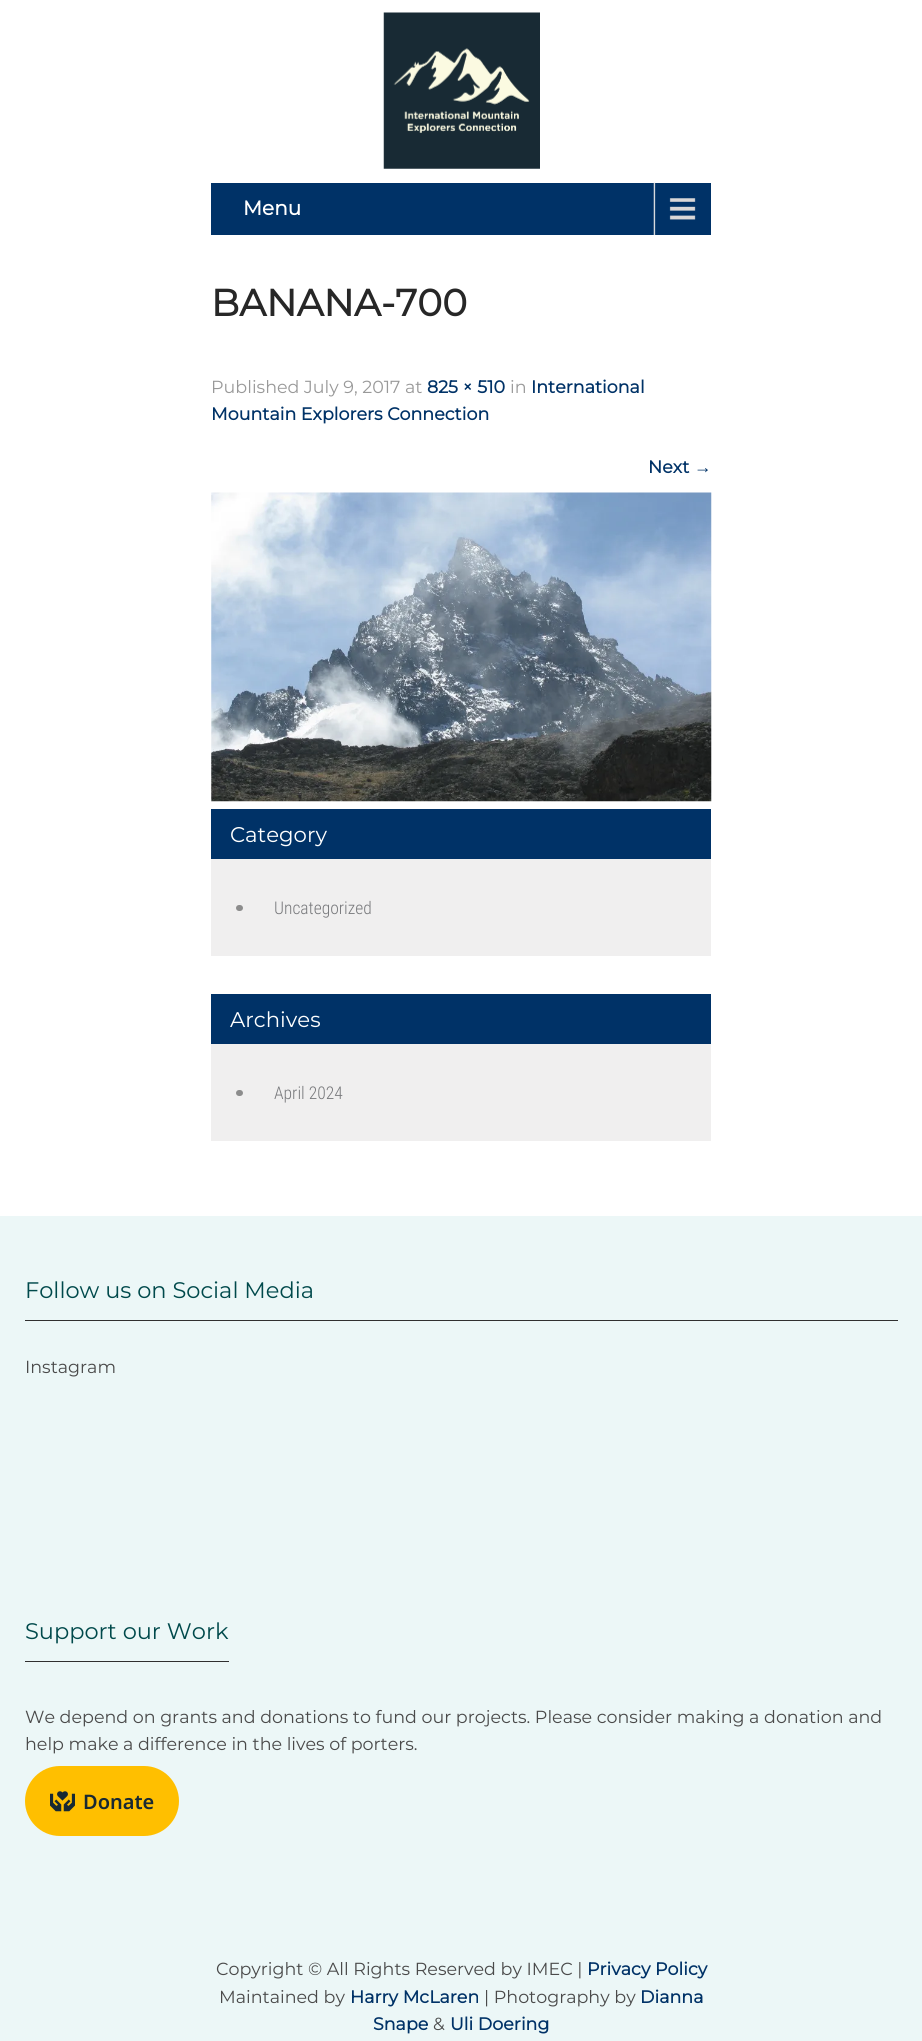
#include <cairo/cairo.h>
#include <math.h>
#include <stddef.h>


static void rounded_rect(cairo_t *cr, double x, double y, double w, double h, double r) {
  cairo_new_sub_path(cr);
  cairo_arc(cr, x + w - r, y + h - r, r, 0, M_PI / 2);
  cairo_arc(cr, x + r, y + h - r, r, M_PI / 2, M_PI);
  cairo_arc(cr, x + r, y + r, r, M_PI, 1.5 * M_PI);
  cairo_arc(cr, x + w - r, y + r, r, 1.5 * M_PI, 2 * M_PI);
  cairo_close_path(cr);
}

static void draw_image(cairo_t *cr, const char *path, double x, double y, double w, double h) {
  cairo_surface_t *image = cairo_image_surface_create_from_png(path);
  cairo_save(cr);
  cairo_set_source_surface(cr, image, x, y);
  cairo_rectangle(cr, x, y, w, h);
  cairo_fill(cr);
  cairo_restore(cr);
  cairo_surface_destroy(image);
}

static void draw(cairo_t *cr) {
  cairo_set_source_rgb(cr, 1, 1, 1);
  cairo_paint(cr);
  draw_image(cr, "images/1.png", 383, 12, 157, 157);
  cairo_set_source_rgb(cr, 0, 50 / 255.0, 103 / 255.0);
  cairo_rectangle(cr, 211, 183, 500, 52);
  cairo_fill(cr);
  draw_image(cr, "images/2.png", 653, 182, 43, 53);
  draw_image(cr, "images/3.png", 211, 492, 501, 310);
  cairo_rectangle(cr, 211, 809, 500, 50);
  cairo_fill(cr);
  cairo_set_source_rgb(cr, 240 / 255.0, 239 / 255.0, 239 / 255.0);
  cairo_rectangle(cr, 211, 859, 500, 97);
  cairo_fill(cr);
  cairo_set_source_rgb(cr, 140 / 255.0, 140 / 255.0, 140 / 255.0);
  rounded_rect(cr, 236, 905, 7, 6, 3);
  cairo_fill(cr);
  cairo_set_source_rgb(cr, 0, 50 / 255.0, 103 / 255.0);
  cairo_rectangle(cr, 211, 994, 500, 50);
  cairo_fill(cr);
  cairo_set_source_rgb(cr, 240 / 255.0, 239 / 255.0, 239 / 255.0);
  cairo_rectangle(cr, 211, 1044, 500, 97);
  cairo_fill(cr);
  cairo_set_source_rgb(cr, 140 / 255.0, 140 / 255.0, 140 / 255.0);
  rounded_rect(cr, 236, 1090, 7, 6, 3);
  cairo_fill(cr);
  cairo_set_source_rgb(cr, 236 / 255.0, 247 / 255.0, 247 / 255.0);
  cairo_rectangle(cr, 0, 1216, 922, 825);
  cairo_fill(cr);
  cairo_set_source_rgb(cr, 48 / 255.0, 48 / 255.0, 48 / 255.0);
  cairo_rectangle(cr, 25, 1320, 873, 1);
  cairo_fill(cr);
  cairo_rectangle(cr, 25, 1661, 204, 1);
  cairo_fill(cr);
  cairo_set_source_rgb(cr, 1, 191 / 255.0, 0);
  rounded_rect(cr, 25, 1766, 154, 70, 35);
  cairo_fill(cr);
  draw_image(cr, "images/4.png", 50, 1791, 25, 21);
  cairo_select_font_face(cr, "Montserrat", CAIRO_FONT_SLANT_NORMAL, CAIRO_FONT_WEIGHT_BOLD);
  cairo_set_font_size(cr, 20);
  cairo_set_source_rgb(cr, 1, 1, 1);
  cairo_move_to(cr, 243, 215);
  cairo_show_text(cr, "Menu");
  cairo_set_font_size(cr, 37.5);
  cairo_set_source_rgb(cr, 39 / 255.0, 39 / 255.0, 39 / 255.0);
  cairo_move_to(cr, 211, 316);
  cairo_show_text(cr, "BANANA-700");
  cairo_select_font_face(cr, "Montserrat Thin", CAIRO_FONT_SLANT_NORMAL, CAIRO_FONT_WEIGHT_NORMAL);
  cairo_set_font_size(cr, 17.5);
  cairo_set_source_rgb(cr, 153 / 255.0, 153 / 255.0, 153 / 255.0);
  cairo_move_to(cr, 211, 393);
  cairo_show_text(cr, "Published July 9, 2017 at");
  cairo_select_font_face(cr, "Montserrat", CAIRO_FONT_SLANT_NORMAL, CAIRO_FONT_WEIGHT_BOLD);
  cairo_set_source_rgb(cr, 0, 50 / 255.0, 103 / 255.0);
  cairo_move_to(cr, 427, 393);
  cairo_show_text(cr, "825 × 510");
  cairo_select_font_face(cr, "Montserrat Thin", CAIRO_FONT_SLANT_NORMAL, CAIRO_FONT_WEIGHT_NORMAL);
  cairo_set_source_rgb(cr, 153 / 255.0, 153 / 255.0, 153 / 255.0);
  cairo_move_to(cr, 510, 393);
  cairo_show_text(cr, "in");
  cairo_select_font_face(cr, "Montserrat", CAIRO_FONT_SLANT_NORMAL, CAIRO_FONT_WEIGHT_BOLD);
  cairo_set_source_rgb(cr, 0, 50 / 255.0, 103 / 255.0);
  cairo_move_to(cr, 531, 393);
  cairo_show_text(cr, "International");
  cairo_move_to(cr, 211, 420);
  cairo_show_text(cr, "Mountain Explorers Connection");
  cairo_move_to(cr, 648, 473);
  cairo_show_text(cr, "Next");
  cairo_select_font_face(cr, "Liberation Serif", CAIRO_FONT_SLANT_NORMAL, CAIRO_FONT_WEIGHT_BOLD);
  cairo_move_to(cr, 694, 473);
  cairo_show_text(cr, "→");
  cairo_select_font_face(cr, "Montserrat Thin", CAIRO_FONT_SLANT_NORMAL, CAIRO_FONT_WEIGHT_NORMAL);
  cairo_set_font_size(cr, 21.25);
  cairo_set_source_rgb(cr, 1, 1, 1);
  cairo_move_to(cr, 230, 842);
  cairo_show_text(cr, "Category");
  cairo_select_font_face(cr, "Roboto Condensed Light", CAIRO_FONT_SLANT_NORMAL, CAIRO_FONT_WEIGHT_NORMAL);
  cairo_set_font_size(cr, 17.5);
  cairo_set_source_rgb(cr, 120 / 255.0, 121 / 255.0, 124 / 255.0);
  cairo_move_to(cr, 274, 914);
  cairo_show_text(cr, "Uncategorized");
  cairo_select_font_face(cr, "Montserrat Thin", CAIRO_FONT_SLANT_NORMAL, CAIRO_FONT_WEIGHT_NORMAL);
  cairo_set_font_size(cr, 21.25);
  cairo_set_source_rgb(cr, 1, 1, 1);
  cairo_move_to(cr, 230, 1027);
  cairo_show_text(cr, "Archives");
  cairo_select_font_face(cr, "Roboto Condensed Light", CAIRO_FONT_SLANT_NORMAL, CAIRO_FONT_WEIGHT_NORMAL);
  cairo_set_font_size(cr, 17.5);
  cairo_set_source_rgb(cr, 120 / 255.0, 121 / 255.0, 124 / 255.0);
  cairo_move_to(cr, 274, 1099);
  cairo_show_text(cr, "April 2024");
  cairo_select_font_face(cr, "Montserrat Thin", CAIRO_FONT_SLANT_NORMAL, CAIRO_FONT_WEIGHT_NORMAL);
  cairo_set_font_size(cr, 22.5);
  cairo_set_source_rgb(cr, 0, 73 / 255.0, 75 / 255.0);
  cairo_move_to(cr, 25, 1298);
  cairo_show_text(cr, "Follow us on Social Media");
  cairo_set_font_size(cr, 17.5);
  cairo_set_source_rgb(cr, 74 / 255.0, 74 / 255.0, 74 / 255.0);
  cairo_move_to(cr, 25, 1373);
  cairo_show_text(cr, "Instagram");
  cairo_set_font_size(cr, 22.5);
  cairo_set_source_rgb(cr, 0, 73 / 255.0, 75 / 255.0);
  cairo_move_to(cr, 25, 1639);
  cairo_show_text(cr, "Support our Work");
  cairo_set_font_size(cr, 17.5);
  cairo_set_source_rgb(cr, 74 / 255.0, 74 / 255.0, 74 / 255.0);
  cairo_move_to(cr, 25, 1723);
  cairo_show_text(cr, "We depend on grants and donations to fund our projects. Please consider making a donation and");
  cairo_move_to(cr, 25, 1750);
  cairo_show_text(cr, "help make a difference in the lives of porters.");
  cairo_select_font_face(cr, "Noto Sans SemiBold", CAIRO_FONT_SLANT_NORMAL, CAIRO_FONT_WEIGHT_NORMAL);
  cairo_set_font_size(cr, 20);
  cairo_set_source_rgb(cr, 24 / 255.0, 41 / 255.0, 51 / 255.0);
  cairo_move_to(cr, 83, 1809);
  cairo_show_text(cr, "Donate");
  cairo_select_font_face(cr, "Montserrat Thin", CAIRO_FONT_SLANT_NORMAL, CAIRO_FONT_WEIGHT_NORMAL);
  cairo_set_font_size(cr, 17.5);
  cairo_set_source_rgb(cr, 74 / 255.0, 74 / 255.0, 74 / 255.0);
  cairo_move_to(cr, 216, 1975);
  cairo_show_text(cr, "Copyright © All Rights Reserved by IMEC |");
  cairo_select_font_face(cr, "Montserrat", CAIRO_FONT_SLANT_NORMAL, CAIRO_FONT_WEIGHT_BOLD);
  cairo_set_source_rgb(cr, 0, 50 / 255.0, 103 / 255.0);
  cairo_move_to(cr, 587, 1975);
  cairo_show_text(cr, "Privacy Policy");
  cairo_select_font_face(cr, "Montserrat Thin", CAIRO_FONT_SLANT_NORMAL, CAIRO_FONT_WEIGHT_NORMAL);
  cairo_set_source_rgb(cr, 74 / 255.0, 74 / 255.0, 74 / 255.0);
  cairo_move_to(cr, 219, 2003);
  cairo_show_text(cr, "Maintained by");
  cairo_select_font_face(cr, "Montserrat", CAIRO_FONT_SLANT_NORMAL, CAIRO_FONT_WEIGHT_BOLD);
  cairo_set_source_rgb(cr, 0, 50 / 255.0, 103 / 255.0);
  cairo_move_to(cr, 350, 2003);
  cairo_show_text(cr, "Harry McLaren");
  cairo_select_font_face(cr, "Montserrat Thin", CAIRO_FONT_SLANT_NORMAL, CAIRO_FONT_WEIGHT_NORMAL);
  cairo_set_source_rgb(cr, 74 / 255.0, 74 / 255.0, 74 / 255.0);
  cairo_move_to(cr, 484, 2003);
  cairo_show_text(cr, "| Photography by");
  cairo_select_font_face(cr, "Montserrat", CAIRO_FONT_SLANT_NORMAL, CAIRO_FONT_WEIGHT_BOLD);
  cairo_set_source_rgb(cr, 0, 50 / 255.0, 103 / 255.0);
  cairo_move_to(cr, 640, 2003);
  cairo_show_text(cr, "Dianna");
  cairo_move_to(cr, 373, 2030);
  cairo_show_text(cr, "Snape");
  cairo_select_font_face(cr, "Montserrat Thin", CAIRO_FONT_SLANT_NORMAL, CAIRO_FONT_WEIGHT_NORMAL);
  cairo_set_source_rgb(cr, 74 / 255.0, 74 / 255.0, 74 / 255.0);
  cairo_move_to(cr, 433, 2030);
  cairo_show_text(cr, "&");
  cairo_select_font_face(cr, "Montserrat", CAIRO_FONT_SLANT_NORMAL, CAIRO_FONT_WEIGHT_BOLD);
  cairo_set_source_rgb(cr, 0, 50 / 255.0, 103 / 255.0);
  cairo_move_to(cr, 450, 2030);
  cairo_show_text(cr, "Uli Doering");
}

int main(void) {
  cairo_surface_t *surface = cairo_image_surface_create(CAIRO_FORMAT_RGB24, 922, 2041);
  cairo_t *cr = cairo_create(surface);
  cairo_font_options_t *options = cairo_font_options_create();
  cairo_font_options_set_hint_metrics(options, CAIRO_HINT_METRICS_OFF);
  cairo_font_options_set_hint_style(options, CAIRO_HINT_STYLE_NONE);
  cairo_set_font_options(cr, options);
  cairo_set_miter_limit(cr, 4);
  draw(cr);
  cairo_surface_write_to_png(surface, "out.png");
  cairo_font_options_destroy(options);
  cairo_destroy(cr);
  cairo_surface_destroy(surface);
  return 0;
}
